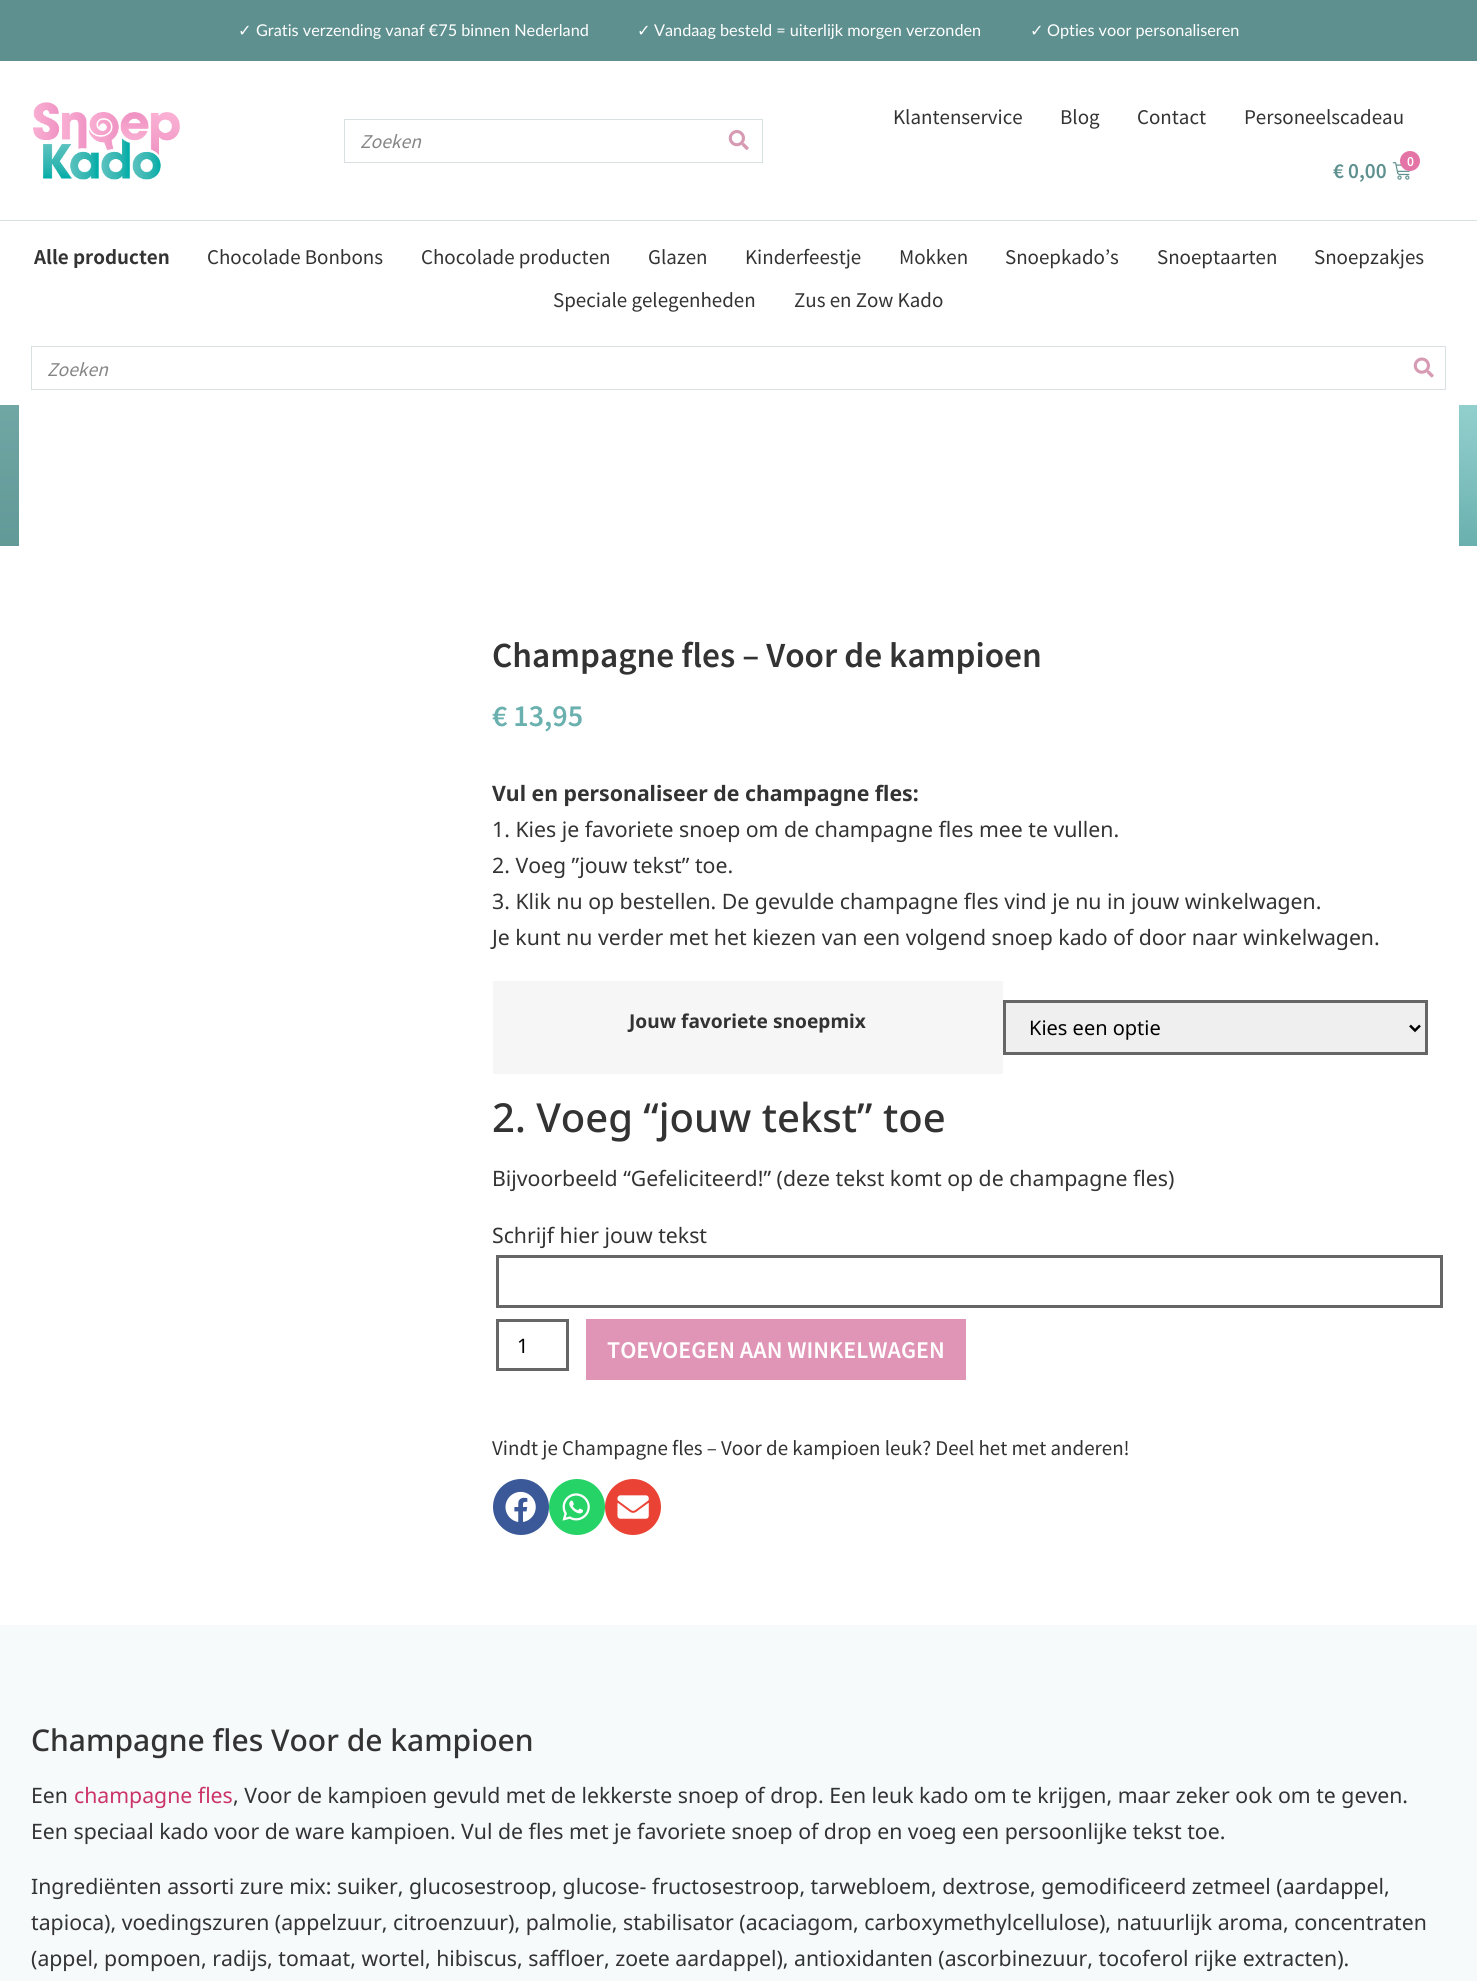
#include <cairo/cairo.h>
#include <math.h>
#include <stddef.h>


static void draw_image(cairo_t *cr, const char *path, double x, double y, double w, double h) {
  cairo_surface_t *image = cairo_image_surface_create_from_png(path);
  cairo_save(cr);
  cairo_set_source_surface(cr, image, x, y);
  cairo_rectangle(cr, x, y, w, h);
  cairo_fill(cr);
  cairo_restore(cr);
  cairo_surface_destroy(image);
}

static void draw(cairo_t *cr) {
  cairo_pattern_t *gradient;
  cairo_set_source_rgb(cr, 1, 1, 1);
  cairo_paint(cr);
  cairo_set_source_rgb(cr, 94 / 255.0, 144 / 255.0, 143 / 255.0);
  cairo_rectangle(cr, 0, 0, 1477, 61);
  cairo_fill(cr);
  cairo_set_source_rgb(cr, 215 / 255.0, 225 / 255.0, 225 / 255.0);
  cairo_rectangle(cr, 0, 220, 1477, 1);
  cairo_fill(cr);
  draw_image(cr, "images/1.png", 33, 102, 147, 78);
  cairo_rectangle(cr, 344.5, 119.5, 418, 43);
  cairo_set_line_width(cr, 1);
  cairo_stroke(cr);
  draw_image(cr, "images/2.png", 728, 130, 21, 20);
  draw_image(cr, "images/3.png", 1392, 162, 19, 18);
  cairo_set_source_rgb(cr, 228 / 255.0, 115 / 255.0, 166 / 255.0);
  cairo_arc(cr, 1410, 161, 10, 0, 2 * M_PI);
  cairo_fill(cr);
  cairo_rectangle(cr, 31.5, 346.5, 1414, 43);
  cairo_set_source_rgb(cr, 215 / 255.0, 225 / 255.0, 225 / 255.0);
  cairo_stroke(cr);
  draw_image(cr, "images/4.png", 1413, 357, 21, 21);
  gradient = cairo_pattern_create_linear(739, 405, 739, 546);
  cairo_pattern_add_color_stop_rgba(gradient, 0, 155 / 255.0, 218 / 255.0, 216 / 255.0, 1);
  cairo_pattern_add_color_stop_rgba(gradient, 1, 105 / 255.0, 176 / 255.0, 174 / 255.0, 1);
  cairo_set_source(cr, gradient);
  cairo_pattern_destroy(gradient);
  cairo_rectangle(cr, 0, 405, 1477, 141);
  cairo_fill(cr);
  gradient = cairo_pattern_create_linear(399, 70, 1079, 881);
  cairo_pattern_add_color_stop_rgba(gradient, 0.5, 94 / 255.0, 144 / 255.0, 143 / 255.0, 0.7);
  cairo_pattern_add_color_stop_rgba(gradient, 1, 94 / 255.0, 144 / 255.0, 143 / 255.0, 0);
  cairo_set_source(cr, gradient);
  cairo_pattern_destroy(gradient);
  cairo_rectangle(cr, 0, 405, 1477, 141);
  cairo_fill(cr);
  cairo_set_source_rgb(cr, 1, 1, 1);
  cairo_rectangle(cr, 19, 405, 1440, 141);
  cairo_fill(cr);
  cairo_set_source_rgb(cr, 246 / 255.0, 246 / 255.0, 246 / 255.0);
  cairo_rectangle(cr, 493, 981, 510, 93);
  cairo_fill(cr);
  cairo_set_source_rgb(cr, 239 / 255.0, 239 / 255.0, 239 / 255.0);
  cairo_rectangle(cr, 1004.5, 1001.5, 422, 52);
  cairo_fill_preserve(cr);
  cairo_set_source_rgb(cr, 102 / 255.0, 102 / 255.0, 102 / 255.0);
  cairo_set_line_width(cr, 3);
  cairo_stroke(cr);
  cairo_new_path(cr);
  cairo_move_to(cr, 1410, 1025.5);
  cairo_line_to(cr, 1415, 1030.5);
  cairo_line_to(cr, 1420, 1025.5);
  cairo_set_source_rgb(cr, 0, 0, 0);
  cairo_set_line_width(cr, 2.5);
  cairo_stroke(cr);
  cairo_rectangle(cr, 497.5, 1256.5, 944, 50);
  cairo_set_source_rgb(cr, 102 / 255.0, 102 / 255.0, 102 / 255.0);
  cairo_set_line_width(cr, 3);
  cairo_stroke(cr);
  cairo_rectangle(cr, 497.5, 1320.5, 70, 49);
  cairo_stroke(cr);
  cairo_set_source_rgb(cr, 224 / 255.0, 149 / 255.0, 183 / 255.0);
  cairo_rectangle(cr, 586, 1319, 380, 61);
  cairo_fill(cr);
  cairo_set_source_rgb(cr, 59 / 255.0, 89 / 255.0, 152 / 255.0);
  cairo_arc(cr, 521, 1507, 28, 0, 2 * M_PI);
  cairo_fill(cr);
  draw_image(cr, "images/5.png", 505, 1491, 31, 31);
  cairo_set_source_rgb(cr, 37 / 255.0, 211 / 255.0, 102 / 255.0);
  cairo_arc(cr, 577, 1507, 28, 0, 2 * M_PI);
  cairo_fill(cr);
  draw_image(cr, "images/6.png", 562, 1493, 28, 28);
  cairo_set_source_rgb(cr, 234 / 255.0, 67 / 255.0, 53 / 255.0);
  cairo_arc(cr, 633, 1507, 28, 0, 2 * M_PI);
  cairo_fill(cr);
  draw_image(cr, "images/7.png", 617, 1495, 32, 24);
  cairo_set_source_rgb(cr, 246 / 255.0, 250 / 255.0, 250 / 255.0);
  cairo_rectangle(cr, 0, 1625, 1477, 356);
  cairo_fill(cr);
  cairo_select_font_face(cr, "DejaVu Sans", CAIRO_FONT_SLANT_NORMAL, CAIRO_FONT_WEIGHT_NORMAL);
  cairo_set_font_size(cr, 16.25);
  cairo_set_source_rgb(cr, 1, 1, 1);
  cairo_move_to(cr, 238, 36);
  cairo_show_text(cr, "✓");
  cairo_select_font_face(cr, "Lato", CAIRO_FONT_SLANT_NORMAL, CAIRO_FONT_WEIGHT_NORMAL);
  cairo_move_to(cr, 256, 36);
  cairo_show_text(cr, "Gratis verzending vanaf €75 binnen Nederland");
  cairo_select_font_face(cr, "DejaVu Sans", CAIRO_FONT_SLANT_NORMAL, CAIRO_FONT_WEIGHT_NORMAL);
  cairo_move_to(cr, 637, 36);
  cairo_show_text(cr, "✓");
  cairo_select_font_face(cr, "Lato", CAIRO_FONT_SLANT_NORMAL, CAIRO_FONT_WEIGHT_NORMAL);
  cairo_move_to(cr, 654, 36);
  cairo_show_text(cr, "Vandaag besteld = uiterlijk morgen verzonden");
  cairo_select_font_face(cr, "DejaVu Sans", CAIRO_FONT_SLANT_NORMAL, CAIRO_FONT_WEIGHT_NORMAL);
  cairo_move_to(cr, 1030, 36);
  cairo_show_text(cr, "✓");
  cairo_select_font_face(cr, "Lato", CAIRO_FONT_SLANT_NORMAL, CAIRO_FONT_WEIGHT_NORMAL);
  cairo_move_to(cr, 1047, 36);
  cairo_show_text(cr, "Opties voor personaliseren");
  cairo_select_font_face(cr, "Noto Sans JP", CAIRO_FONT_SLANT_ITALIC, CAIRO_FONT_WEIGHT_NORMAL);
  cairo_set_font_size(cr, 17.5);
  cairo_set_source_rgb(cr, 133 / 255.0, 133 / 255.0, 133 / 255.0);
  cairo_move_to(cr, 360, 148);
  cairo_show_text(cr, "Zoeken");
  cairo_select_font_face(cr, "Noto Sans JP", CAIRO_FONT_SLANT_NORMAL, CAIRO_FONT_WEIGHT_NORMAL);
  cairo_set_font_size(cr, 18.75);
  cairo_set_source_rgb(cr, 51 / 255.0, 51 / 255.0, 51 / 255.0);
  cairo_move_to(cr, 893, 124);
  cairo_show_text(cr, "Klantenservice");
  cairo_move_to(cr, 1060, 124);
  cairo_show_text(cr, "Blog");
  cairo_move_to(cr, 1137, 124);
  cairo_show_text(cr, "Contact");
  cairo_move_to(cr, 1244, 124);
  cairo_show_text(cr, "Personeelscadeau");
  cairo_select_font_face(cr, "Noto Sans JP SemiBold", CAIRO_FONT_SLANT_NORMAL, CAIRO_FONT_WEIGHT_NORMAL);
  cairo_set_font_size(cr, 12);
  cairo_set_source_rgb(cr, 1, 1, 1);
  cairo_move_to(cr, 1407, 166);
  cairo_show_text(cr, "0");
  cairo_set_font_size(cr, 18.75);
  cairo_set_source_rgb(cr, 94 / 255.0, 144 / 255.0, 143 / 255.0);
  cairo_move_to(cr, 1333, 178);
  cairo_show_text(cr, "€ 0,00");
  cairo_select_font_face(cr, "Noto Sans JP", CAIRO_FONT_SLANT_NORMAL, CAIRO_FONT_WEIGHT_BOLD);
  cairo_set_source_rgb(cr, 51 / 255.0, 51 / 255.0, 51 / 255.0);
  cairo_move_to(cr, 34, 264);
  cairo_show_text(cr, "Alle producten");
  cairo_select_font_face(cr, "Noto Sans JP", CAIRO_FONT_SLANT_NORMAL, CAIRO_FONT_WEIGHT_NORMAL);
  cairo_move_to(cr, 207, 264);
  cairo_show_text(cr, "Chocolade Bonbons");
  cairo_move_to(cr, 421, 264);
  cairo_show_text(cr, "Chocolade producten");
  cairo_move_to(cr, 648, 264);
  cairo_show_text(cr, "Glazen");
  cairo_move_to(cr, 745, 264);
  cairo_show_text(cr, "Kinderfeestje");
  cairo_move_to(cr, 899, 264);
  cairo_show_text(cr, "Mokken");
  cairo_move_to(cr, 1005, 264);
  cairo_show_text(cr, "Snoepkado’s");
  cairo_move_to(cr, 1157, 264);
  cairo_show_text(cr, "Snoeptaarten");
  cairo_move_to(cr, 1314, 264);
  cairo_show_text(cr, "Snoepzakjes");
  cairo_move_to(cr, 553, 307);
  cairo_show_text(cr, "Speciale gelegenheden");
  cairo_move_to(cr, 794, 307);
  cairo_show_text(cr, "Zus en Zow Kado");
  cairo_select_font_face(cr, "Noto Sans JP", CAIRO_FONT_SLANT_ITALIC, CAIRO_FONT_WEIGHT_NORMAL);
  cairo_set_font_size(cr, 17.5);
  cairo_set_source_rgb(cr, 133 / 255.0, 133 / 255.0, 133 / 255.0);
  cairo_move_to(cr, 47, 376);
  cairo_show_text(cr, "Zoeken");
  cairo_select_font_face(cr, "Noto Sans JP SemiBold", CAIRO_FONT_SLANT_NORMAL, CAIRO_FONT_WEIGHT_NORMAL);
  cairo_set_font_size(cr, 31.25);
  cairo_set_source_rgb(cr, 51 / 255.0, 51 / 255.0, 51 / 255.0);
  cairo_move_to(cr, 492, 667);
  cairo_show_text(cr, "Champagne fles – Voor de kampioen");
  cairo_set_font_size(cr, 26.5);
  cairo_set_source_rgb(cr, 105 / 255.0, 176 / 255.0, 174 / 255.0);
  cairo_move_to(cr, 492, 726);
  cairo_show_text(cr, "€ 13,95");
  cairo_select_font_face(cr, "Noto Sans", CAIRO_FONT_SLANT_NORMAL, CAIRO_FONT_WEIGHT_BOLD);
  cairo_set_font_size(cr, 21.25);
  cairo_set_source_rgb(cr, 51 / 255.0, 51 / 255.0, 51 / 255.0);
  cairo_move_to(cr, 492, 801);
  cairo_show_text(cr, "Vul en personaliseer de champagne fles:");
  cairo_select_font_face(cr, "Noto Sans", CAIRO_FONT_SLANT_NORMAL, CAIRO_FONT_WEIGHT_NORMAL);
  cairo_move_to(cr, 492, 837);
  cairo_show_text(cr, "1. Kies je favoriete snoep om de champagne fles mee te vullen.");
  cairo_move_to(cr, 492, 873);
  cairo_show_text(cr, "2. Voeg ”jouw tekst” toe.");
  cairo_move_to(cr, 492, 909);
  cairo_show_text(cr, "3. Klik nu op bestellen. De gevulde champagne fles vind je nu in jouw winkelwagen.");
  cairo_move_to(cr, 492, 945);
  cairo_show_text(cr, "Je kunt nu verder met het kiezen van een volgend snoep kado of door naar winkelwagen.");
  cairo_select_font_face(cr, "Noto Sans", CAIRO_FONT_SLANT_NORMAL, CAIRO_FONT_WEIGHT_BOLD);
  cairo_set_font_size(cr, 19.1);
  cairo_move_to(cr, 629, 1028);
  cairo_show_text(cr, "Jouw favoriete snoepmix");
  cairo_select_font_face(cr, "Noto Sans", CAIRO_FONT_SLANT_NORMAL, CAIRO_FONT_WEIGHT_NORMAL);
  cairo_set_font_size(cr, 20);
  cairo_set_source_rgb(cr, 0, 0, 0);
  cairo_move_to(cr, 1029, 1035);
  cairo_show_text(cr, "Kies een optie");
  cairo_select_font_face(cr, "Noto Sans Medium", CAIRO_FONT_SLANT_NORMAL, CAIRO_FONT_WEIGHT_NORMAL);
  cairo_set_font_size(cr, 40);
  cairo_set_source_rgb(cr, 51 / 255.0, 51 / 255.0, 51 / 255.0);
  cairo_move_to(cr, 492, 1132);
  cairo_show_text(cr, "2. Voeg “jouw tekst” toe");
  cairo_select_font_face(cr, "Noto Sans", CAIRO_FONT_SLANT_NORMAL, CAIRO_FONT_WEIGHT_NORMAL);
  cairo_set_font_size(cr, 21.25);
  cairo_move_to(cr, 492, 1186);
  cairo_show_text(cr, "Bijvoorbeeld “Gefeliciteerd!” (deze tekst komt op de champagne fles)");
  cairo_move_to(cr, 492, 1243);
  cairo_show_text(cr, "Schrijf hier jouw tekst");
  cairo_set_font_size(cr, 20);
  cairo_set_source_rgb(cr, 0, 0, 0);
  cairo_move_to(cr, 517, 1353);
  cairo_show_text(cr, "1");
  cairo_select_font_face(cr, "Noto Sans JP SemiBold", CAIRO_FONT_SLANT_NORMAL, CAIRO_FONT_WEIGHT_NORMAL);
  cairo_set_font_size(cr, 21.25);
  cairo_set_source_rgb(cr, 1, 1, 1);
  cairo_move_to(cr, 607, 1358);
  cairo_show_text(cr, "TOEVOEGEN AAN WINKELWAGEN");
  cairo_select_font_face(cr, "Noto Sans JP", CAIRO_FONT_SLANT_NORMAL, CAIRO_FONT_WEIGHT_NORMAL);
  cairo_set_font_size(cr, 18.75);
  cairo_set_source_rgb(cr, 51 / 255.0, 51 / 255.0, 51 / 255.0);
  cairo_move_to(cr, 492, 1455);
  cairo_show_text(cr, "Vindt je Champagne fles – Voor de kampioen leuk? Deel het met anderen!");
  cairo_select_font_face(cr, "Noto Sans Medium", CAIRO_FONT_SLANT_NORMAL, CAIRO_FONT_WEIGHT_NORMAL);
  cairo_set_font_size(cr, 30);
  cairo_move_to(cr, 31, 1751);
  cairo_show_text(cr, "Champagne fles Voor de kampioen");
  cairo_select_font_face(cr, "Noto Sans", CAIRO_FONT_SLANT_NORMAL, CAIRO_FONT_WEIGHT_NORMAL);
  cairo_set_font_size(cr, 21.25);
  cairo_move_to(cr, 31, 1803);
  cairo_show_text(cr, "Een");
  cairo_set_source_rgb(cr, 204 / 255.0, 51 / 255.0, 102 / 255.0);
  cairo_move_to(cr, 74, 1803);
  cairo_show_text(cr, "champagne fles");
  cairo_set_source_rgb(cr, 51 / 255.0, 51 / 255.0, 51 / 255.0);
  cairo_move_to(cr, 233, 1803);
  cairo_show_text(cr, ", Voor de kampioen gevuld met de lekkerste snoep of drop. Een leuk kado om te krijgen, maar zeker ook om te geven.");
  cairo_move_to(cr, 31, 1839);
  cairo_show_text(cr, "Een speciaal kado voor de ware kampioen. Vul de fles met je favoriete snoep of drop en voeg een persoonlijke tekst toe.");
  cairo_move_to(cr, 31, 1894);
  cairo_show_text(cr, "Ingrediënten assorti zure mix: suiker, glucosestroop, glucose- fructosestroop, tarwebloem, dextrose, gemodificeerd zetmeel (aardappel,");
  cairo_move_to(cr, 31, 1930);
  cairo_show_text(cr, "tapioca), voedingszuren (appelzuur, citroenzuur), palmolie, stabilisator (acaciagom, carboxymethylcellulose), natuurlijk aroma, concentraten");
  cairo_move_to(cr, 31, 1966);
  cairo_show_text(cr, "(appel, pompoen, radijs, tomaat, wortel, hibiscus, saffloer, zoete aardappel), antioxidanten (ascorbinezuur, tocoferol rijke extracten).");
}

int main(void) {
  cairo_surface_t *surface = cairo_image_surface_create(CAIRO_FORMAT_RGB24, 1477, 1981);
  cairo_t *cr = cairo_create(surface);
  cairo_font_options_t *options = cairo_font_options_create();
  cairo_font_options_set_hint_metrics(options, CAIRO_HINT_METRICS_OFF);
  cairo_font_options_set_hint_style(options, CAIRO_HINT_STYLE_NONE);
  cairo_set_font_options(cr, options);
  cairo_set_miter_limit(cr, 4);
  draw(cr);
  cairo_surface_write_to_png(surface, "out.png");
  cairo_font_options_destroy(options);
  cairo_destroy(cr);
  cairo_surface_destroy(surface);
  return 0;
}
